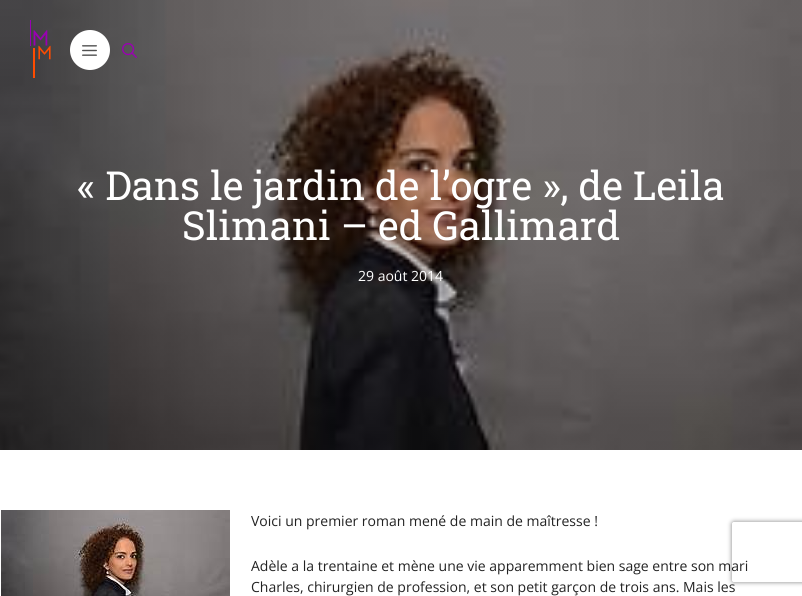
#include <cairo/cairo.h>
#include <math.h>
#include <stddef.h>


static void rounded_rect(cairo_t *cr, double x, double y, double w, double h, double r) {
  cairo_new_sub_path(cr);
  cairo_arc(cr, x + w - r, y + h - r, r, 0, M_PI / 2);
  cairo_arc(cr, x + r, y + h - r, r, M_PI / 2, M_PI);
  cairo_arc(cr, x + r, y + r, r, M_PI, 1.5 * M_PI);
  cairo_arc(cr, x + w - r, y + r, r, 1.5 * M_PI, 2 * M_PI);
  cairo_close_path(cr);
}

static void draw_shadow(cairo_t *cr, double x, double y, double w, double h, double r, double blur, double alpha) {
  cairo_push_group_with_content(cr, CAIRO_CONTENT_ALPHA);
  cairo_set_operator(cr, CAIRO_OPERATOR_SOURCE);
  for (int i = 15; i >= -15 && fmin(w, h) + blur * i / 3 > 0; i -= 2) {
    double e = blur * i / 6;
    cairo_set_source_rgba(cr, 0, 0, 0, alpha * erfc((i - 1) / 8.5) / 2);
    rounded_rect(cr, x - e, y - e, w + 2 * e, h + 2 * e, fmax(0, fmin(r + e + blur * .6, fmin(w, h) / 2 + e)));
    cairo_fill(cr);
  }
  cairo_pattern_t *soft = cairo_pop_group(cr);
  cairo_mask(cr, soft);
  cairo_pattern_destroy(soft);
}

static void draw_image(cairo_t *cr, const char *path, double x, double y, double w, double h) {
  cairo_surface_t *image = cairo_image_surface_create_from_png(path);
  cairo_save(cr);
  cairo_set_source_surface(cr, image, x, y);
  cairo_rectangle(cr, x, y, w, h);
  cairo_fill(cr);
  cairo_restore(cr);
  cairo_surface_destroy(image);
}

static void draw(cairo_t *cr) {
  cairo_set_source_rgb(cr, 1, 1, 1);
  cairo_paint(cr);
  draw_image(cr, "images/4.png", 0, 0, 802, 450);
  draw_image(cr, "images/1.png", 30, 20, 21, 58);
  cairo_set_source_rgb(cr, 1, 1, 1);
  cairo_arc(cr, 90, 50, 20, 0, 2 * M_PI);
  cairo_fill(cr);
  draw_image(cr, "images/2.png", 82, 45, 15, 11);
  draw_image(cr, "images/3.png", 122, 43, 15, 15);
  draw_image(cr, "images/5.png", 1, 510, 229, 86);
  cairo_save(cr);
  cairo_set_fill_rule(cr, CAIRO_FILL_RULE_EVEN_ODD);
  cairo_new_path(cr);
  cairo_move_to(cr, 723, 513);
  cairo_line_to(cr, 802, 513);
  cairo_line_to(cr, 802, 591);
  cairo_line_to(cr, 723, 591);
  cairo_close_path(cr);
  cairo_move_to(cr, 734, 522);
  cairo_line_to(cr, 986, 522);
  cairo_curve_to(cr, 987, 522, 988, 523, 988, 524);
  cairo_line_to(cr, 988, 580);
  cairo_curve_to(cr, 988, 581, 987, 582, 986, 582);
  cairo_line_to(cr, 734, 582);
  cairo_curve_to(cr, 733, 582, 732, 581, 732, 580);
  cairo_line_to(cr, 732, 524);
  cairo_curve_to(cr, 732, 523, 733, 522, 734, 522);
  cairo_close_path(cr);
  cairo_clip(cr);
  cairo_set_source_rgb(cr, 128 / 255.0, 128 / 255.0, 128 / 255.0);
  draw_shadow(cr, 732, 522, 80, 60, 2, 2.5, 1);
  cairo_restore(cr);
  cairo_select_font_face(cr, "Roboto Slab", CAIRO_FONT_SLANT_NORMAL, CAIRO_FONT_WEIGHT_NORMAL);
  cairo_set_font_size(cr, 40);
  cairo_move_to(cr, 77, 200);
  cairo_show_text(cr, "« Dans le jardin de l’ogre », de Leila");
  cairo_move_to(cr, 182, 240);
  cairo_show_text(cr, "Slimani – ed Gallimard");
  cairo_select_font_face(cr, "Open Sans", CAIRO_FONT_SLANT_NORMAL, CAIRO_FONT_WEIGHT_NORMAL);
  cairo_set_font_size(cr, 14);
  cairo_move_to(cr, 358, 281);
  cairo_show_text(cr, "29 août 2014");
  cairo_set_source_rgb(cr, 34 / 255.0, 34 / 255.0, 34 / 255.0);
  cairo_move_to(cr, 251, 526);
  cairo_show_text(cr, "Voici un premier roman mené de main de maîtresse !");
  cairo_move_to(cr, 251, 571);
  cairo_show_text(cr, "Adèle a la trentaine et mène une vie apparemment bien sage entre son mari");
  cairo_move_to(cr, 251, 592);
  cairo_show_text(cr, "Charles, chirurgien de profession, et son petit garçon de trois ans. Mais les");
}

int main(void) {
  cairo_surface_t *surface = cairo_image_surface_create(CAIRO_FORMAT_RGB24, 802, 596);
  cairo_t *cr = cairo_create(surface);
  cairo_font_options_t *options = cairo_font_options_create();
  cairo_font_options_set_hint_metrics(options, CAIRO_HINT_METRICS_OFF);
  cairo_font_options_set_hint_style(options, CAIRO_HINT_STYLE_NONE);
  cairo_set_font_options(cr, options);
  cairo_set_miter_limit(cr, 4);
  draw(cr);
  cairo_surface_write_to_png(surface, "out.png");
  cairo_font_options_destroy(options);
  cairo_destroy(cr);
  cairo_surface_destroy(surface);
  return 0;
}
